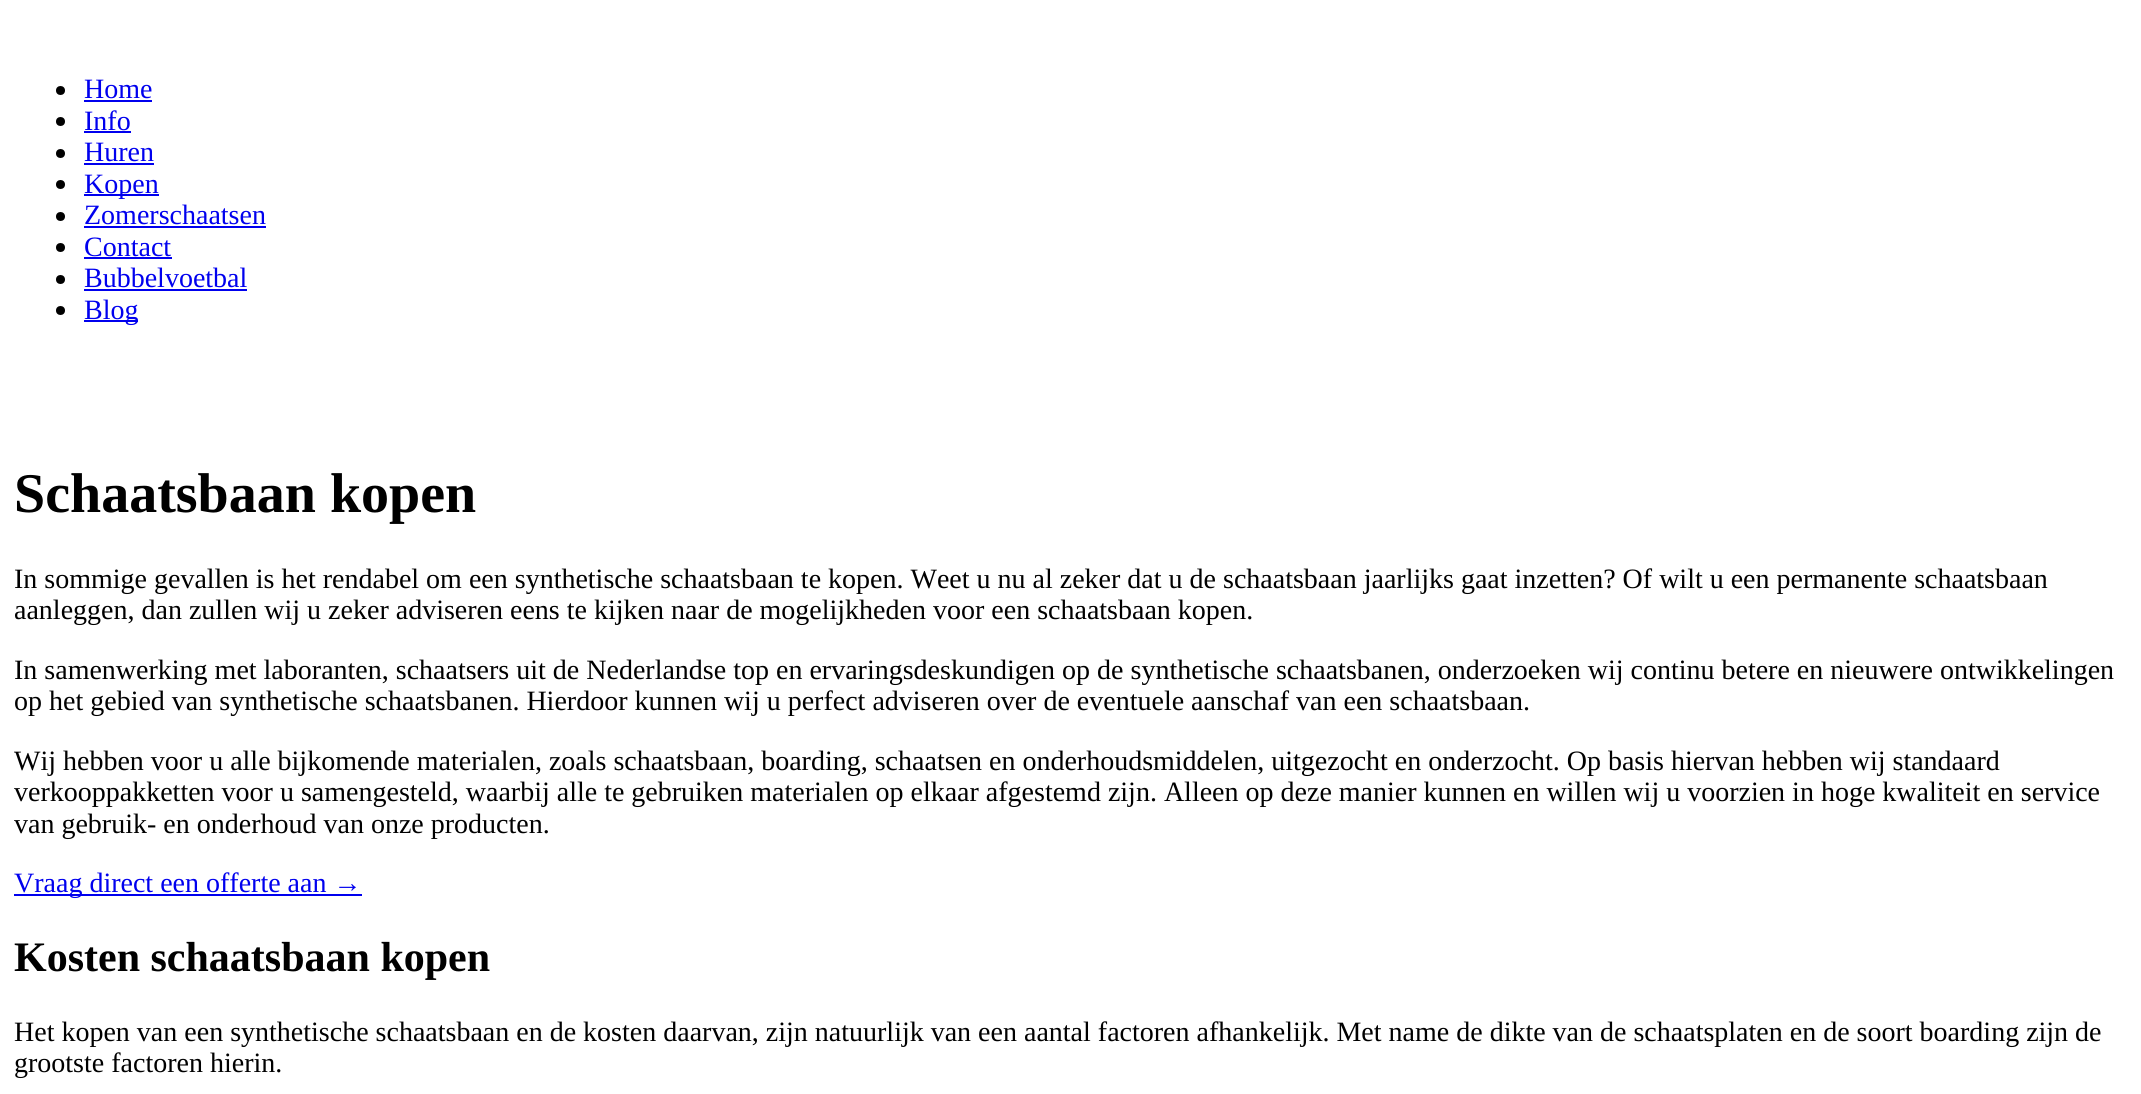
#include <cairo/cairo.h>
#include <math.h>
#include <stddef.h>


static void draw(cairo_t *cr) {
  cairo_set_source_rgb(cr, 1, 1, 1);
  cairo_paint(cr);
  cairo_set_source_rgb(cr, 0, 0, 0);
  cairo_arc(cr, 60.5, 90.5, 4.5, 0, 2 * M_PI);
  cairo_fill(cr);
  cairo_set_source_rgb(cr, 0, 0, 238 / 255.0);
  cairo_rectangle(cr, 84, 100, 68, 2);
  cairo_fill(cr);
  cairo_set_source_rgb(cr, 0, 0, 0);
  cairo_arc(cr, 60.5, 121.5, 4.5, 0, 2 * M_PI);
  cairo_fill(cr);
  cairo_set_source_rgb(cr, 0, 0, 238 / 255.0);
  cairo_rectangle(cr, 84, 131, 47, 2);
  cairo_fill(cr);
  cairo_set_source_rgb(cr, 0, 0, 0);
  cairo_arc(cr, 60.5, 153.5, 4.5, 0, 2 * M_PI);
  cairo_fill(cr);
  cairo_set_source_rgb(cr, 0, 0, 238 / 255.0);
  cairo_rectangle(cr, 84, 163, 70, 2);
  cairo_fill(cr);
  cairo_set_source_rgb(cr, 0, 0, 0);
  cairo_arc(cr, 60.5, 184.5, 4.5, 0, 2 * M_PI);
  cairo_fill(cr);
  cairo_set_source_rgb(cr, 0, 0, 238 / 255.0);
  cairo_rectangle(cr, 84, 194, 75, 2);
  cairo_fill(cr);
  cairo_set_source_rgb(cr, 0, 0, 0);
  cairo_arc(cr, 60.5, 216.5, 4.5, 0, 2 * M_PI);
  cairo_fill(cr);
  cairo_set_source_rgb(cr, 0, 0, 238 / 255.0);
  cairo_rectangle(cr, 84, 226, 182, 2);
  cairo_fill(cr);
  cairo_set_source_rgb(cr, 0, 0, 0);
  cairo_arc(cr, 60.5, 247.5, 4.5, 0, 2 * M_PI);
  cairo_fill(cr);
  cairo_set_source_rgb(cr, 0, 0, 238 / 255.0);
  cairo_rectangle(cr, 84, 257, 88, 2);
  cairo_fill(cr);
  cairo_set_source_rgb(cr, 0, 0, 0);
  cairo_arc(cr, 60.5, 279.5, 4.5, 0, 2 * M_PI);
  cairo_fill(cr);
  cairo_set_source_rgb(cr, 0, 0, 238 / 255.0);
  cairo_rectangle(cr, 84, 289, 163, 2);
  cairo_fill(cr);
  cairo_set_source_rgb(cr, 0, 0, 0);
  cairo_arc(cr, 60.5, 310.5, 4.5, 0, 2 * M_PI);
  cairo_fill(cr);
  cairo_set_source_rgb(cr, 0, 0, 238 / 255.0);
  cairo_rectangle(cr, 84, 320, 54, 2);
  cairo_fill(cr);
  cairo_rectangle(cr, 14, 894, 348, 2);
  cairo_fill(cr);
  cairo_select_font_face(cr, "Liberation Serif", CAIRO_FONT_SLANT_NORMAL, CAIRO_FONT_WEIGHT_NORMAL);
  cairo_set_font_size(cr, 28);
  cairo_move_to(cr, 84, 98);
  cairo_show_text(cr, "Home");
  cairo_move_to(cr, 84, 130);
  cairo_show_text(cr, "Info");
  cairo_move_to(cr, 84, 161);
  cairo_show_text(cr, "Huren");
  cairo_move_to(cr, 84, 193);
  cairo_show_text(cr, "Kopen");
  cairo_move_to(cr, 84, 224);
  cairo_show_text(cr, "Zomerschaatsen");
  cairo_move_to(cr, 84, 256);
  cairo_show_text(cr, "Contact");
  cairo_move_to(cr, 84, 287);
  cairo_show_text(cr, "Bubbelvoetbal");
  cairo_move_to(cr, 84, 319);
  cairo_show_text(cr, "Blog");
  cairo_select_font_face(cr, "Liberation Serif", CAIRO_FONT_SLANT_NORMAL, CAIRO_FONT_WEIGHT_BOLD);
  cairo_set_font_size(cr, 56);
  cairo_set_source_rgb(cr, 0, 0, 0);
  cairo_move_to(cr, 14, 512);
  cairo_show_text(cr, "Schaatsbaan kopen");
  cairo_select_font_face(cr, "Liberation Serif", CAIRO_FONT_SLANT_NORMAL, CAIRO_FONT_WEIGHT_NORMAL);
  cairo_set_font_size(cr, 28);
  cairo_move_to(cr, 14, 588);
  cairo_show_text(cr, "In sommige gevallen is het rendabel om een synthetische schaatsbaan te kopen. Weet u nu al zeker dat u de schaatsbaan jaarlijks gaat inzetten? Of wilt u een permanente schaatsbaan");
  cairo_move_to(cr, 14, 619);
  cairo_show_text(cr, "aanleggen, dan zullen wij u zeker adviseren eens te kijken naar de mogelijkheden voor een schaatsbaan kopen.");
  cairo_move_to(cr, 14, 679);
  cairo_show_text(cr, "In samenwerking met laboranten, schaatsers uit de Nederlandse top en ervaringsdeskundigen op de synthetische schaatsbanen, onderzoeken wij continu betere en nieuwere ontwikkelingen");
  cairo_move_to(cr, 14, 710);
  cairo_show_text(cr, "op het gebied van synthetische schaatsbanen. Hierdoor kunnen wij u perfect adviseren over de eventuele aanschaf van een schaatsbaan.");
  cairo_move_to(cr, 14, 770);
  cairo_show_text(cr, "Wij hebben voor u alle bijkomende materialen, zoals schaatsbaan, boarding, schaatsen en onderhoudsmiddelen, uitgezocht en onderzocht. Op basis hiervan hebben wij standaard");
  cairo_move_to(cr, 14, 801);
  cairo_show_text(cr, "verkooppakketten voor u samengesteld, waarbij alle te gebruiken materialen op elkaar afgestemd zijn. Alleen op deze manier kunnen en willen wij u voorzien in hoge kwaliteit en service");
  cairo_move_to(cr, 14, 833);
  cairo_show_text(cr, "van gebruik- en onderhoud van onze producten.");
  cairo_set_source_rgb(cr, 0, 0, 238 / 255.0);
  cairo_move_to(cr, 14, 892);
  cairo_show_text(cr, "Vraag direct een offerte aan →");
  cairo_select_font_face(cr, "Liberation Serif", CAIRO_FONT_SLANT_NORMAL, CAIRO_FONT_WEIGHT_BOLD);
  cairo_set_font_size(cr, 42);
  cairo_set_source_rgb(cr, 0, 0, 0);
  cairo_move_to(cr, 14, 971);
  cairo_show_text(cr, "Kosten schaatsbaan kopen");
  cairo_select_font_face(cr, "Liberation Serif", CAIRO_FONT_SLANT_NORMAL, CAIRO_FONT_WEIGHT_NORMAL);
  cairo_set_font_size(cr, 28);
  cairo_move_to(cr, 14, 1041);
  cairo_show_text(cr, "Het kopen van een synthetische schaatsbaan en de kosten daarvan, zijn natuurlijk van een aantal factoren afhankelijk. Met name de dikte van de schaatsplaten en de soort boarding zijn de");
  cairo_move_to(cr, 14, 1072);
  cairo_show_text(cr, "grootste factoren hierin.");
}

int main(void) {
  cairo_surface_t *surface = cairo_image_surface_create(CAIRO_FORMAT_RGB24, 2141, 1094);
  cairo_t *cr = cairo_create(surface);
  cairo_font_options_t *options = cairo_font_options_create();
  cairo_font_options_set_hint_metrics(options, CAIRO_HINT_METRICS_OFF);
  cairo_font_options_set_hint_style(options, CAIRO_HINT_STYLE_NONE);
  cairo_set_font_options(cr, options);
  cairo_set_miter_limit(cr, 4);
  draw(cr);
  cairo_surface_write_to_png(surface, "out.png");
  cairo_font_options_destroy(options);
  cairo_destroy(cr);
  cairo_surface_destroy(surface);
  return 0;
}
